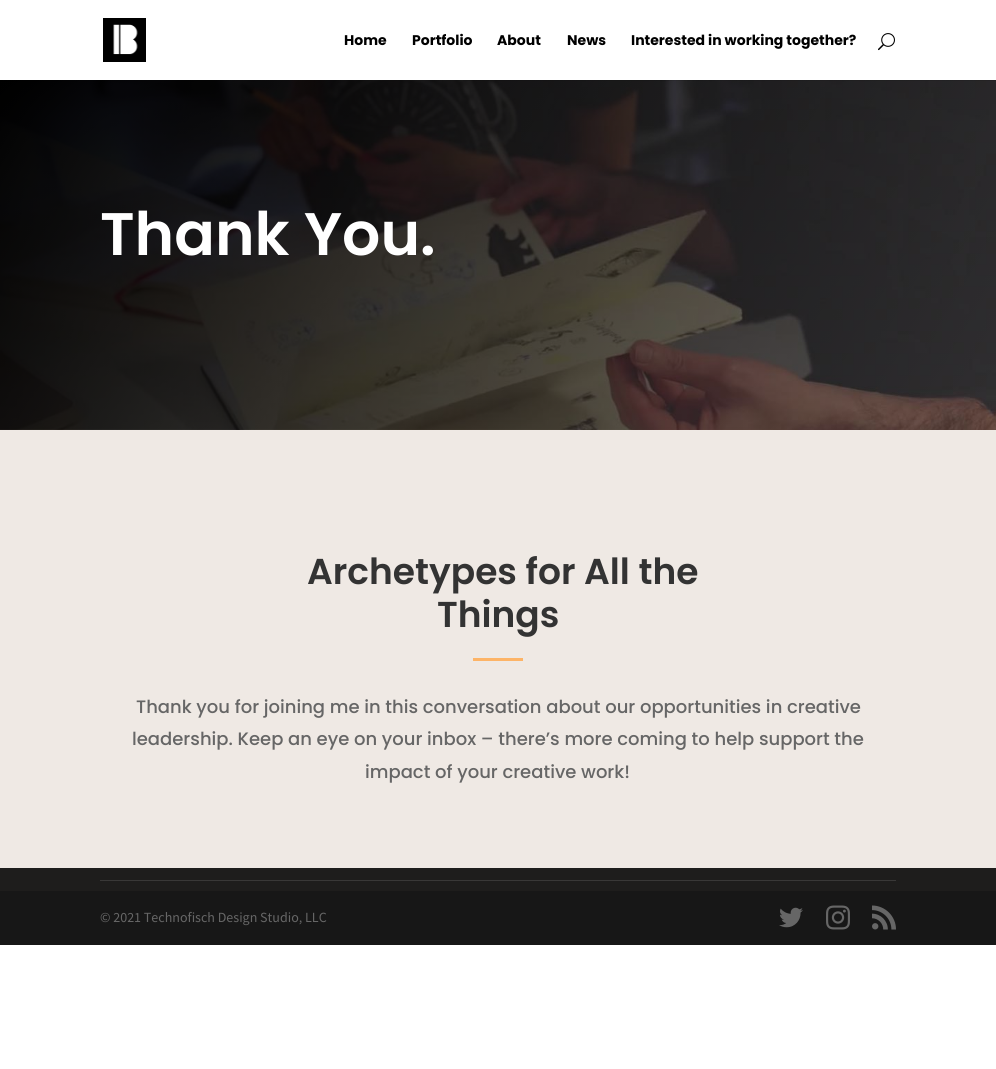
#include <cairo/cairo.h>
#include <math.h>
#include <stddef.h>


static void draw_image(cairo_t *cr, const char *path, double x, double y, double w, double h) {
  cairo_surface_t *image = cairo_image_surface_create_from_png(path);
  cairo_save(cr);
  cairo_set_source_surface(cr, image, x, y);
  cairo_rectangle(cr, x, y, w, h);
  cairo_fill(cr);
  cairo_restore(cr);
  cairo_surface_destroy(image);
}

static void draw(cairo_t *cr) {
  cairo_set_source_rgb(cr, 1, 1, 1);
  cairo_paint(cr);
  draw_image(cr, "images/3.png", 0, 80, 996, 350);
  cairo_set_source_rgba(cr, 0, 0, 0, 0.1);
  cairo_rectangle(cr, 463, 80, 533, 1);
  cairo_fill(cr);
  draw_image(cr, "images/1.png", 103, 18, 43, 44);
  draw_image(cr, "images/2.png", 878, 33, 17, 18);
  cairo_set_source_rgb(cr, 239 / 255.0, 233 / 255.0, 228 / 255.0);
  cairo_rectangle(cr, 0, 430, 996, 438);
  cairo_fill(cr);
  cairo_set_source_rgb(cr, 253 / 255.0, 180 / 255.0, 103 / 255.0);
  cairo_rectangle(cr, 473, 658, 50, 3);
  cairo_fill(cr);
  cairo_set_source_rgb(cr, 30 / 255.0, 29 / 255.0, 28 / 255.0);
  cairo_rectangle(cr, 0, 868, 996, 23);
  cairo_fill(cr);
  cairo_set_source_rgb(cr, 57 / 255.0, 56 / 255.0, 55 / 255.0);
  cairo_rectangle(cr, 100, 880, 796, 1);
  cairo_fill(cr);
  cairo_set_source_rgb(cr, 23 / 255.0, 23 / 255.0, 23 / 255.0);
  cairo_rectangle(cr, 0, 891, 996, 54);
  cairo_fill(cr);
  draw_image(cr, "images/4.png", 779, 907, 24, 21);
  draw_image(cr, "images/5.png", 826, 905, 24, 25);
  draw_image(cr, "images/6.png", 872, 905, 24, 25);
  cairo_select_font_face(cr, "Poppins", CAIRO_FONT_SLANT_NORMAL, CAIRO_FONT_WEIGHT_BOLD);
  cairo_set_font_size(cr, 14);
  cairo_set_source_rgb(cr, 0, 0, 0);
  cairo_move_to(cr, 344, 45);
  cairo_show_text(cr, "Home");
  cairo_move_to(cr, 412, 45);
  cairo_show_text(cr, "Portfolio");
  cairo_move_to(cr, 497, 45);
  cairo_show_text(cr, "About");
  cairo_move_to(cr, 567, 45);
  cairo_show_text(cr, "News");
  cairo_move_to(cr, 631, 45);
  cairo_show_text(cr, "Interested in working together?");
  cairo_select_font_face(cr, "Poppins SemiBold", CAIRO_FONT_SLANT_NORMAL, CAIRO_FONT_WEIGHT_NORMAL);
  cairo_set_font_size(cr, 60);
  cairo_set_source_rgb(cr, 1, 1, 1);
  cairo_move_to(cr, 100, 255);
  cairo_show_text(cr, "Thank You.");
  cairo_set_font_size(cr, 36);
  cairo_set_source_rgb(cr, 51 / 255.0, 51 / 255.0, 51 / 255.0);
  cairo_move_to(cr, 307, 584);
  cairo_show_text(cr, "Archetypes for All the");
  cairo_move_to(cr, 437, 627);
  cairo_show_text(cr, "Things");
  cairo_select_font_face(cr, "Poppins Medium", CAIRO_FONT_SLANT_NORMAL, CAIRO_FONT_WEIGHT_NORMAL);
  cairo_set_font_size(cr, 18);
  cairo_set_source_rgb(cr, 102 / 255.0, 102 / 255.0, 102 / 255.0);
  cairo_move_to(cr, 136, 713);
  cairo_show_text(cr, "Thank you for joining me in this conversation about our opportunities in creative");
  cairo_move_to(cr, 132, 745);
  cairo_show_text(cr, "leadership. Keep an eye on your inbox – there’s more coming to help support the");
  cairo_move_to(cr, 365, 778);
  cairo_show_text(cr, "impact of your creative work!");
  cairo_select_font_face(cr, "Source Sans Pro", CAIRO_FONT_SLANT_NORMAL, CAIRO_FONT_WEIGHT_NORMAL);
  cairo_set_font_size(cr, 14);
  cairo_move_to(cr, 100, 922);
  cairo_show_text(cr, "© 2021 Technofisch Design Studio, LLC");
}

int main(void) {
  cairo_surface_t *surface = cairo_image_surface_create(CAIRO_FORMAT_RGB24, 996, 1069);
  cairo_t *cr = cairo_create(surface);
  cairo_font_options_t *options = cairo_font_options_create();
  cairo_font_options_set_hint_metrics(options, CAIRO_HINT_METRICS_OFF);
  cairo_font_options_set_hint_style(options, CAIRO_HINT_STYLE_NONE);
  cairo_set_font_options(cr, options);
  cairo_set_miter_limit(cr, 4);
  draw(cr);
  cairo_surface_write_to_png(surface, "out.png");
  cairo_font_options_destroy(options);
  cairo_destroy(cr);
  cairo_surface_destroy(surface);
  return 0;
}
